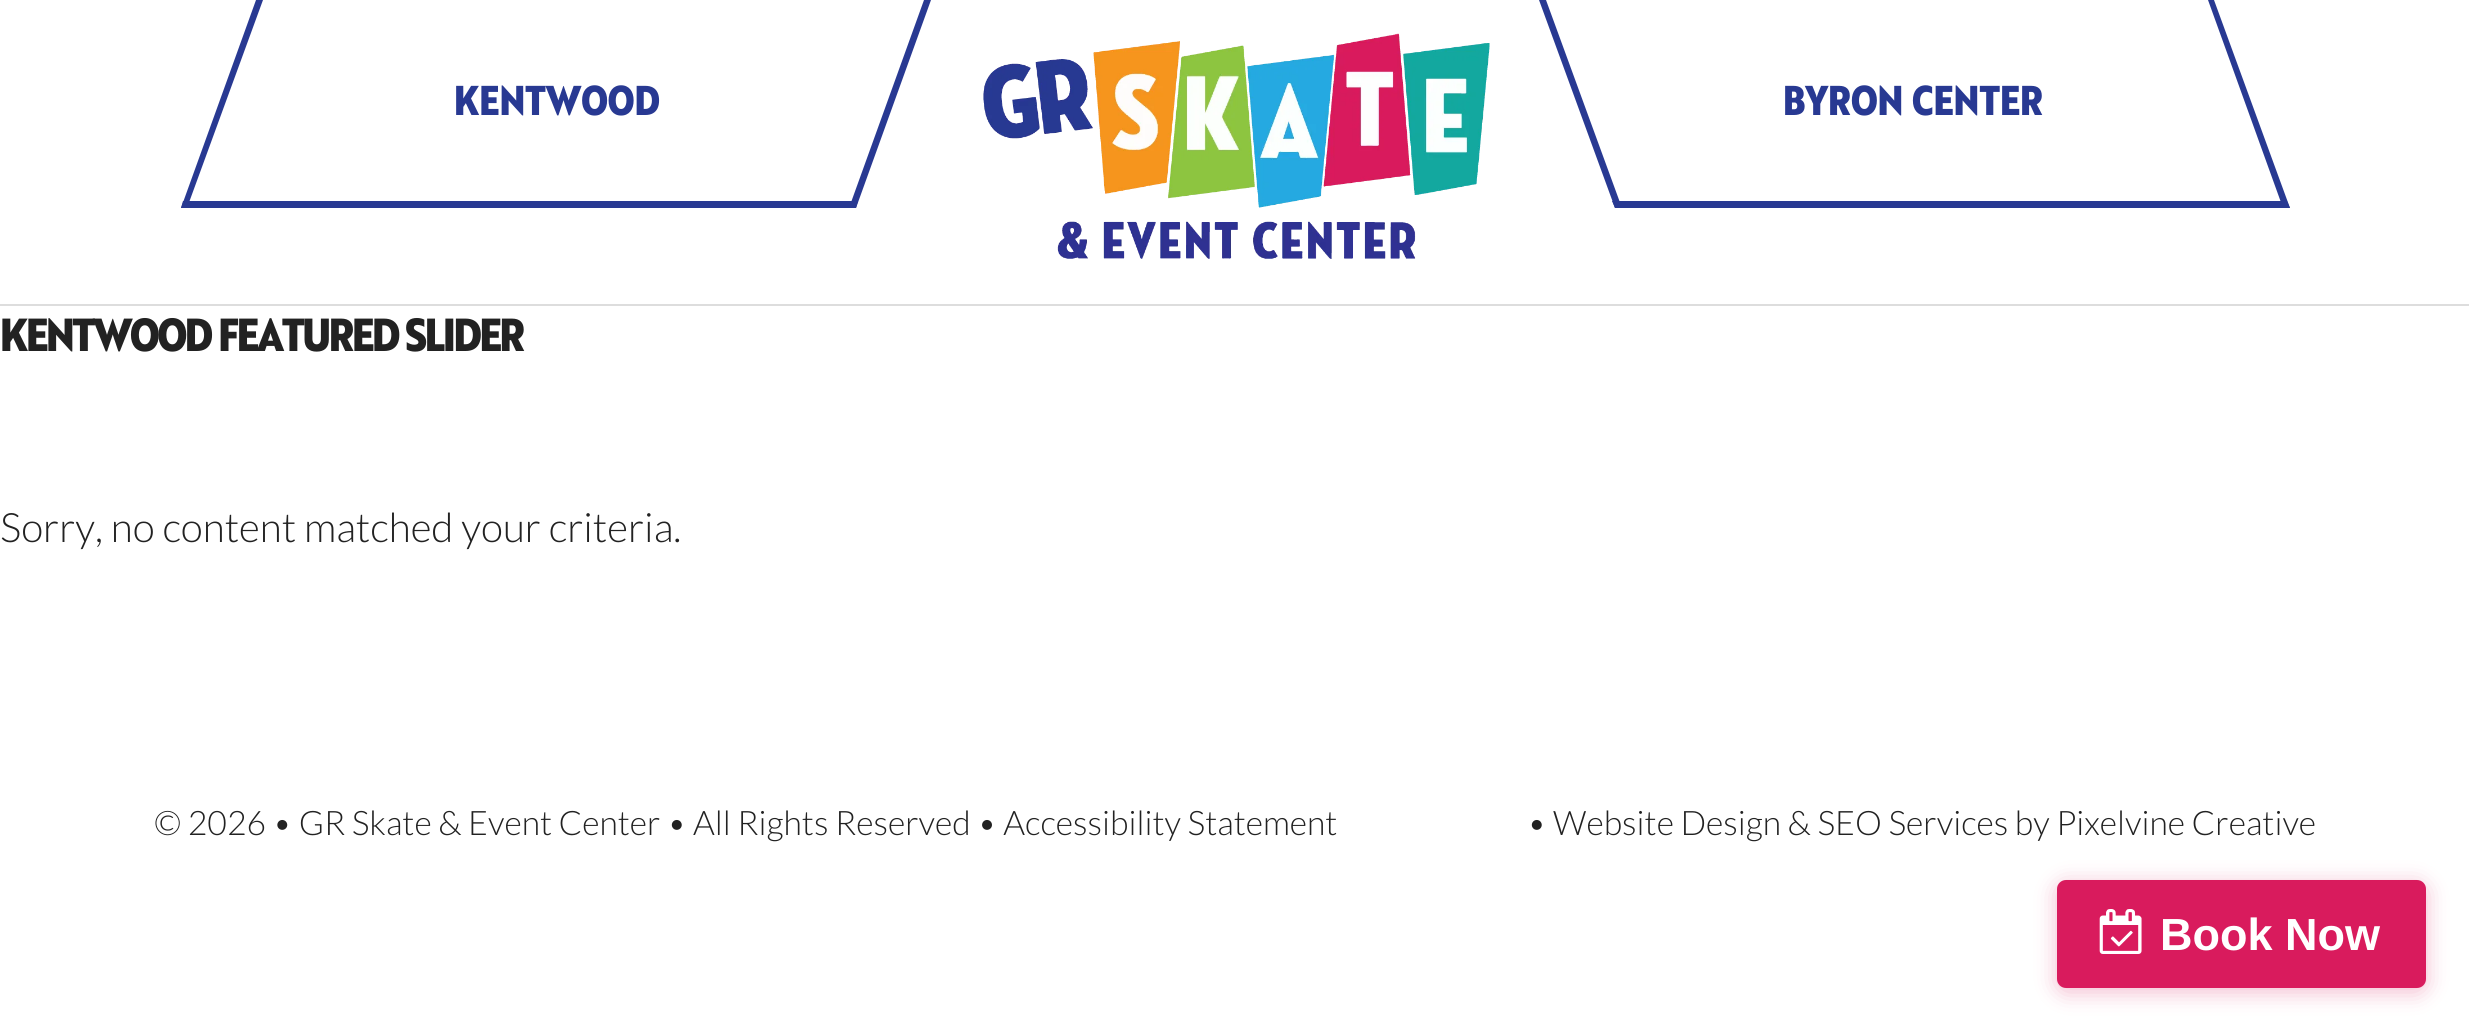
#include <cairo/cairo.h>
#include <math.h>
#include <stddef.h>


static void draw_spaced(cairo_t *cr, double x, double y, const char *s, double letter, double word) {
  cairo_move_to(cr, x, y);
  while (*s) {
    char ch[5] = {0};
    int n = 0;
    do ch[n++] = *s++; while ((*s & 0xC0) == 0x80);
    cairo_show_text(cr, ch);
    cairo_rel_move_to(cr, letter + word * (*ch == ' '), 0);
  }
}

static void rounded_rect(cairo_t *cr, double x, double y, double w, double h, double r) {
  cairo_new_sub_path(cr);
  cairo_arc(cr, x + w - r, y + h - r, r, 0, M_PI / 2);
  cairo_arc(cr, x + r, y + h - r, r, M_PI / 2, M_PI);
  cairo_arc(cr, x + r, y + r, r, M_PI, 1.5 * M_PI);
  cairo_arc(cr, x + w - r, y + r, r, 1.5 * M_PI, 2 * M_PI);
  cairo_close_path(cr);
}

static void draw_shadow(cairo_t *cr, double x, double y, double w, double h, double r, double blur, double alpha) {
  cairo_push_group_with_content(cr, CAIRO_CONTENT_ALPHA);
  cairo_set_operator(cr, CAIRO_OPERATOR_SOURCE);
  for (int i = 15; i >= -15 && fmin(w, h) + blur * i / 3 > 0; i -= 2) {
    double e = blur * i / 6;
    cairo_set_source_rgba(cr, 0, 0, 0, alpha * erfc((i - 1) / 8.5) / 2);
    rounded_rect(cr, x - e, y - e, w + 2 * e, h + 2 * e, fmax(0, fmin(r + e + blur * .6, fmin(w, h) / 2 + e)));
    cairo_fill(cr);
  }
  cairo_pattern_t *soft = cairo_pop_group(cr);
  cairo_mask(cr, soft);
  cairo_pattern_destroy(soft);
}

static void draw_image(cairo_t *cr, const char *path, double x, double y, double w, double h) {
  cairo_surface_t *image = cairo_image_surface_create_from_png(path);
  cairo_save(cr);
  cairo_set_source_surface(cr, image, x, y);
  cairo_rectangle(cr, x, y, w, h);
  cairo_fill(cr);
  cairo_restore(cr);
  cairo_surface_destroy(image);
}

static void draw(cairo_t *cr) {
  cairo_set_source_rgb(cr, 1, 1, 1);
  cairo_paint(cr);
  cairo_set_source_rgb(cr, 221 / 255.0, 221 / 255.0, 221 / 255.0);
  cairo_rectangle(cr, 0, 304, 2469, 2);
  cairo_fill(cr);
  draw_image(cr, "images/1.png", 983, 33, 507, 226);
  cairo_set_source_rgb(cr, 40 / 255.0, 57 / 255.0, 146 / 255.0);
  cairo_new_path(cr);
  cairo_move_to(cr, 924, 0);
  cairo_line_to(cr, 931, 0);
  cairo_line_to(cr, 856, 208);
  cairo_line_to(cr, 849, 208);
  cairo_close_path(cr);
  cairo_fill(cr);
  cairo_new_path(cr);
  cairo_move_to(cr, 183, 201);
  cairo_line_to(cr, 858, 201);
  cairo_line_to(cr, 856, 208);
  cairo_line_to(cr, 181, 208);
  cairo_close_path(cr);
  cairo_fill(cr);
  cairo_new_path(cr);
  cairo_move_to(cr, 256, 0);
  cairo_line_to(cr, 263, 0);
  cairo_line_to(cr, 187, 208);
  cairo_line_to(cr, 181, 208);
  cairo_close_path(cr);
  cairo_fill(cr);
  cairo_new_path(cr);
  cairo_move_to(cr, 2208, 0);
  cairo_line_to(cr, 2214, 0);
  cairo_line_to(cr, 2290, 208);
  cairo_line_to(cr, 2283, 208);
  cairo_close_path(cr);
  cairo_fill(cr);
  cairo_new_path(cr);
  cairo_move_to(cr, 1612, 201);
  cairo_line_to(cr, 2287, 201);
  cairo_line_to(cr, 2290, 208);
  cairo_line_to(cr, 1615, 208);
  cairo_close_path(cr);
  cairo_fill(cr);
  cairo_new_path(cr);
  cairo_move_to(cr, 1539, 0);
  cairo_line_to(cr, 1546, 0);
  cairo_line_to(cr, 1622, 208);
  cairo_line_to(cr, 1615, 208);
  cairo_close_path(cr);
  cairo_fill(cr);
  cairo_set_source_rgb(cr, 217 / 255.0, 27 / 255.0, 93 / 255.0);
  draw_shadow(cr, 2057, 884, 369, 108, 9, 11, 0.3);
  cairo_set_source_rgb(cr, 217 / 255.0, 27 / 255.0, 93 / 255.0);
  rounded_rect(cr, 2057, 880, 369, 108, 9);
  cairo_fill(cr);
  draw_image(cr, "images/2.png", 2099, 909, 43, 45);
  cairo_select_font_face(cr, "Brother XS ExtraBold", CAIRO_FONT_SLANT_NORMAL, CAIRO_FONT_WEIGHT_NORMAL);
  cairo_set_font_size(cr, 40.5);
  cairo_set_source_rgb(cr, 40 / 255.0, 57 / 255.0, 146 / 255.0);
  cairo_move_to(cr, 454, 115);
  cairo_show_text(cr, "KENTWOOD");
  cairo_move_to(cr, 1783, 115);
  cairo_show_text(cr, "BYRON CENTER");
  cairo_set_font_size(cr, 45);
  cairo_set_source_rgb(cr, 34 / 255.0, 34 / 255.0, 34 / 255.0);
  draw_spaced(cr, 0, 351, "KENTWOOD FEATURED SLIDER", -2.25, 0);
  cairo_select_font_face(cr, "Lato Light", CAIRO_FONT_SLANT_NORMAL, CAIRO_FONT_WEIGHT_NORMAL);
  cairo_set_font_size(cr, 40.5);
  cairo_move_to(cr, 0, 542);
  cairo_show_text(cr, "Sorry, no content matched your criteria.");
  cairo_set_font_size(cr, 33.75);
  cairo_move_to(cr, 154, 835);
  cairo_show_text(cr, "© 2026 • GR Skate & Event Center • All Rights Reserved • Accessibility Statement");
  cairo_move_to(cr, 1527, 835);
  cairo_show_text(cr, "• Website Design & SEO Services by Pixelvine Creative");
  cairo_select_font_face(cr, "Liberation Sans", CAIRO_FONT_SLANT_NORMAL, CAIRO_FONT_WEIGHT_BOLD);
  cairo_set_font_size(cr, 45);
  cairo_set_source_rgb(cr, 1, 1, 1);
  cairo_move_to(cr, 2160, 950);
  cairo_show_text(cr, "Book Now");
}

int main(void) {
  cairo_surface_t *surface = cairo_image_surface_create(CAIRO_FORMAT_RGB24, 2469, 1032);
  cairo_t *cr = cairo_create(surface);
  cairo_font_options_t *options = cairo_font_options_create();
  cairo_font_options_set_hint_metrics(options, CAIRO_HINT_METRICS_OFF);
  cairo_font_options_set_hint_style(options, CAIRO_HINT_STYLE_NONE);
  cairo_set_font_options(cr, options);
  cairo_set_miter_limit(cr, 4);
  draw(cr);
  cairo_surface_write_to_png(surface, "out.png");
  cairo_font_options_destroy(options);
  cairo_destroy(cr);
  cairo_surface_destroy(surface);
  return 0;
}
